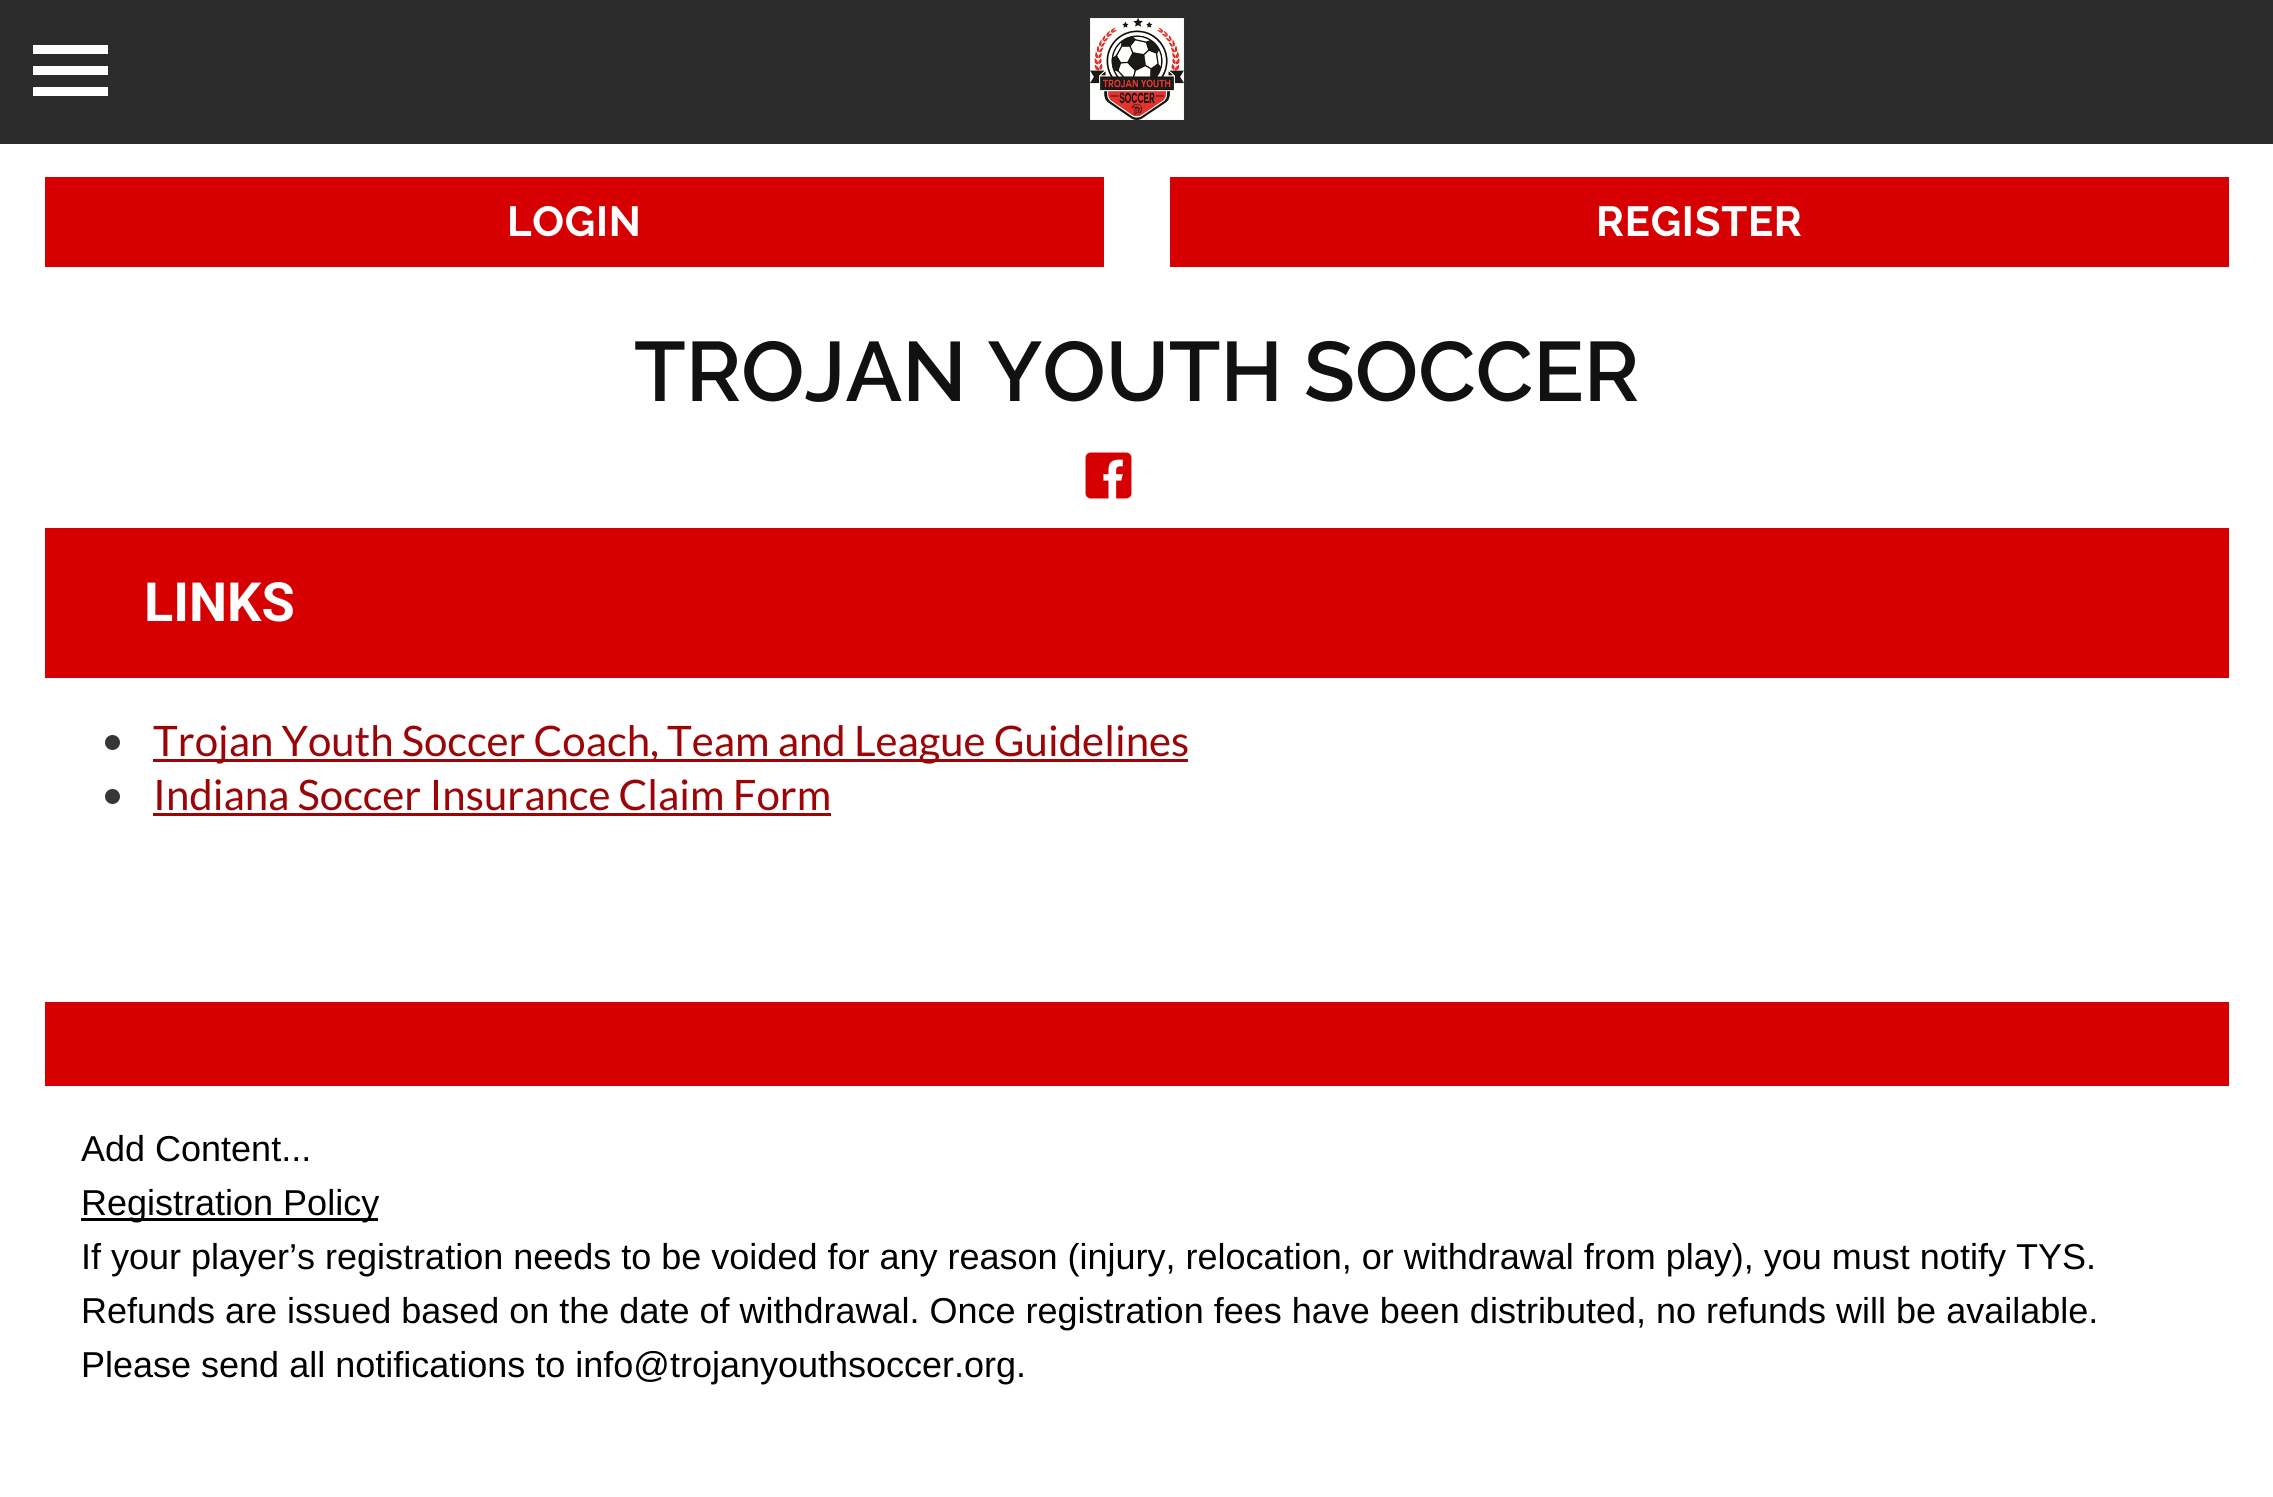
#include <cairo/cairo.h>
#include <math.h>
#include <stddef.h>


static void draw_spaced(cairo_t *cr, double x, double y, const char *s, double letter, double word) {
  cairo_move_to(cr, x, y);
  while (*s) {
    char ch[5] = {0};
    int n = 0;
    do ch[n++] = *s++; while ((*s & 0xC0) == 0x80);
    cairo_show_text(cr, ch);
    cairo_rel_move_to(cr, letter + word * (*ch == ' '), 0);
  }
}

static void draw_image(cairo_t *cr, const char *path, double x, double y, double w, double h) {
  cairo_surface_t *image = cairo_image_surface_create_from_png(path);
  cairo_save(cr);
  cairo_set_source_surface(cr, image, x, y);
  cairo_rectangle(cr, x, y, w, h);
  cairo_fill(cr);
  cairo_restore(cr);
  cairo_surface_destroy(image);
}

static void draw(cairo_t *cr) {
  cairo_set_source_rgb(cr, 1, 1, 1);
  cairo_paint(cr);
  cairo_set_source_rgb(cr, 44 / 255.0, 44 / 255.0, 44 / 255.0);
  cairo_rectangle(cr, 0, 0, 2273, 144);
  cairo_fill(cr);
  cairo_set_source_rgb(cr, 1, 1, 1);
  cairo_new_path(cr);
  cairo_move_to(cr, 33, 45);
  cairo_line_to(cr, 108, 45);
  cairo_line_to(cr, 108, 54);
  cairo_line_to(cr, 33, 54);
  cairo_close_path(cr);
  cairo_move_to(cr, 33, 66);
  cairo_line_to(cr, 108, 66);
  cairo_line_to(cr, 108, 75);
  cairo_line_to(cr, 33, 75);
  cairo_close_path(cr);
  cairo_move_to(cr, 33, 87);
  cairo_line_to(cr, 108, 87);
  cairo_line_to(cr, 108, 96);
  cairo_line_to(cr, 33, 96);
  cairo_close_path(cr);
  cairo_fill(cr);
  draw_image(cr, "images/1.png", 1090, 18, 95, 102);
  cairo_set_source_rgb(cr, 214 / 255.0, 0, 2 / 255.0);
  cairo_rectangle(cr, 45, 177, 1059, 90);
  cairo_fill(cr);
  cairo_rectangle(cr, 1170, 177, 1059, 90);
  cairo_fill(cr);
  draw_image(cr, "images/2.png", 1085, 452, 47, 47);
  cairo_rectangle(cr, 45, 528, 2184, 150);
  cairo_fill(cr);
  cairo_set_source_rgb(cr, 54 / 255.0, 54 / 255.0, 54 / 255.0);
  cairo_arc(cr, 112.5, 742.5, 7.5, 0, 2 * M_PI);
  cairo_fill(cr);
  cairo_set_source_rgb(cr, 155 / 255.0, 5 / 255.0, 7 / 255.0);
  cairo_rectangle(cr, 153, 759, 1035, 3);
  cairo_fill(cr);
  cairo_set_source_rgb(cr, 54 / 255.0, 54 / 255.0, 54 / 255.0);
  cairo_arc(cr, 112.5, 796.5, 7.5, 0, 2 * M_PI);
  cairo_fill(cr);
  cairo_set_source_rgb(cr, 155 / 255.0, 5 / 255.0, 7 / 255.0);
  cairo_rectangle(cr, 153, 813, 678, 3);
  cairo_fill(cr);
  cairo_set_source_rgb(cr, 214 / 255.0, 0, 2 / 255.0);
  cairo_rectangle(cr, 45, 1002, 2184, 84);
  cairo_fill(cr);
  cairo_set_source_rgb(cr, 0, 0, 0);
  cairo_rectangle(cr, 81, 1218, 297, 3);
  cairo_fill(cr);
  cairo_select_font_face(cr, "Raleway", CAIRO_FONT_SLANT_NORMAL, CAIRO_FONT_WEIGHT_BOLD);
  cairo_set_font_size(cr, 42);
  cairo_set_source_rgb(cr, 1, 1, 1);
  draw_spaced(cr, 507, 236, "LOGIN", 0.75, 0);
  draw_spaced(cr, 1596, 236, "REGISTER", 0.75, 0);
  cairo_select_font_face(cr, "Raleway SemiBold", CAIRO_FONT_SLANT_NORMAL, CAIRO_FONT_WEIGHT_NORMAL);
  cairo_set_font_size(cr, 84);
  cairo_set_source_rgb(cr, 17 / 255.0, 17 / 255.0, 17 / 255.0);
  cairo_move_to(cr, 634, 401);
  cairo_show_text(cr, "TROJAN YOUTH SOCCER");
  cairo_select_font_face(cr, "Roboto", CAIRO_FONT_SLANT_NORMAL, CAIRO_FONT_WEIGHT_BOLD);
  cairo_set_font_size(cr, 54);
  cairo_set_source_rgb(cr, 1, 1, 1);
  cairo_move_to(cr, 144, 621);
  cairo_show_text(cr, "LINKS");
  cairo_select_font_face(cr, "Lato", CAIRO_FONT_SLANT_NORMAL, CAIRO_FONT_WEIGHT_NORMAL);
  cairo_set_font_size(cr, 42);
  cairo_set_source_rgb(cr, 155 / 255.0, 5 / 255.0, 7 / 255.0);
  cairo_move_to(cr, 153, 756);
  cairo_show_text(cr, "Trojan Youth Soccer Coach, Team and League Guidelines");
  cairo_move_to(cr, 153, 810);
  cairo_show_text(cr, "Indiana Soccer Insurance Claim Form");
  cairo_select_font_face(cr, "Liberation Sans", CAIRO_FONT_SLANT_NORMAL, CAIRO_FONT_WEIGHT_NORMAL);
  cairo_set_font_size(cr, 36);
  cairo_set_source_rgb(cr, 0, 0, 0);
  cairo_move_to(cr, 81, 1161);
  cairo_show_text(cr, "Add Content...");
  cairo_move_to(cr, 81, 1215);
  cairo_show_text(cr, "Registration Policy");
  cairo_move_to(cr, 81, 1269);
  cairo_show_text(cr, "If your player’s registration needs to be voided for any reason (injury, relocation, or withdrawal from play), you must notify TYS.");
  cairo_move_to(cr, 81, 1323);
  cairo_show_text(cr, "Refunds are issued based on the date of withdrawal. Once registration fees have been distributed, no refunds will be available.");
  cairo_move_to(cr, 81, 1377);
  cairo_show_text(cr, "Please send all notifications to info@trojanyouthsoccer.org.");
}

int main(void) {
  cairo_surface_t *surface = cairo_image_surface_create(CAIRO_FORMAT_RGB24, 2273, 1497);
  cairo_t *cr = cairo_create(surface);
  cairo_font_options_t *options = cairo_font_options_create();
  cairo_font_options_set_hint_metrics(options, CAIRO_HINT_METRICS_OFF);
  cairo_font_options_set_hint_style(options, CAIRO_HINT_STYLE_NONE);
  cairo_set_font_options(cr, options);
  cairo_set_miter_limit(cr, 4);
  draw(cr);
  cairo_surface_write_to_png(surface, "out.png");
  cairo_font_options_destroy(options);
  cairo_destroy(cr);
  cairo_surface_destroy(surface);
  return 0;
}
